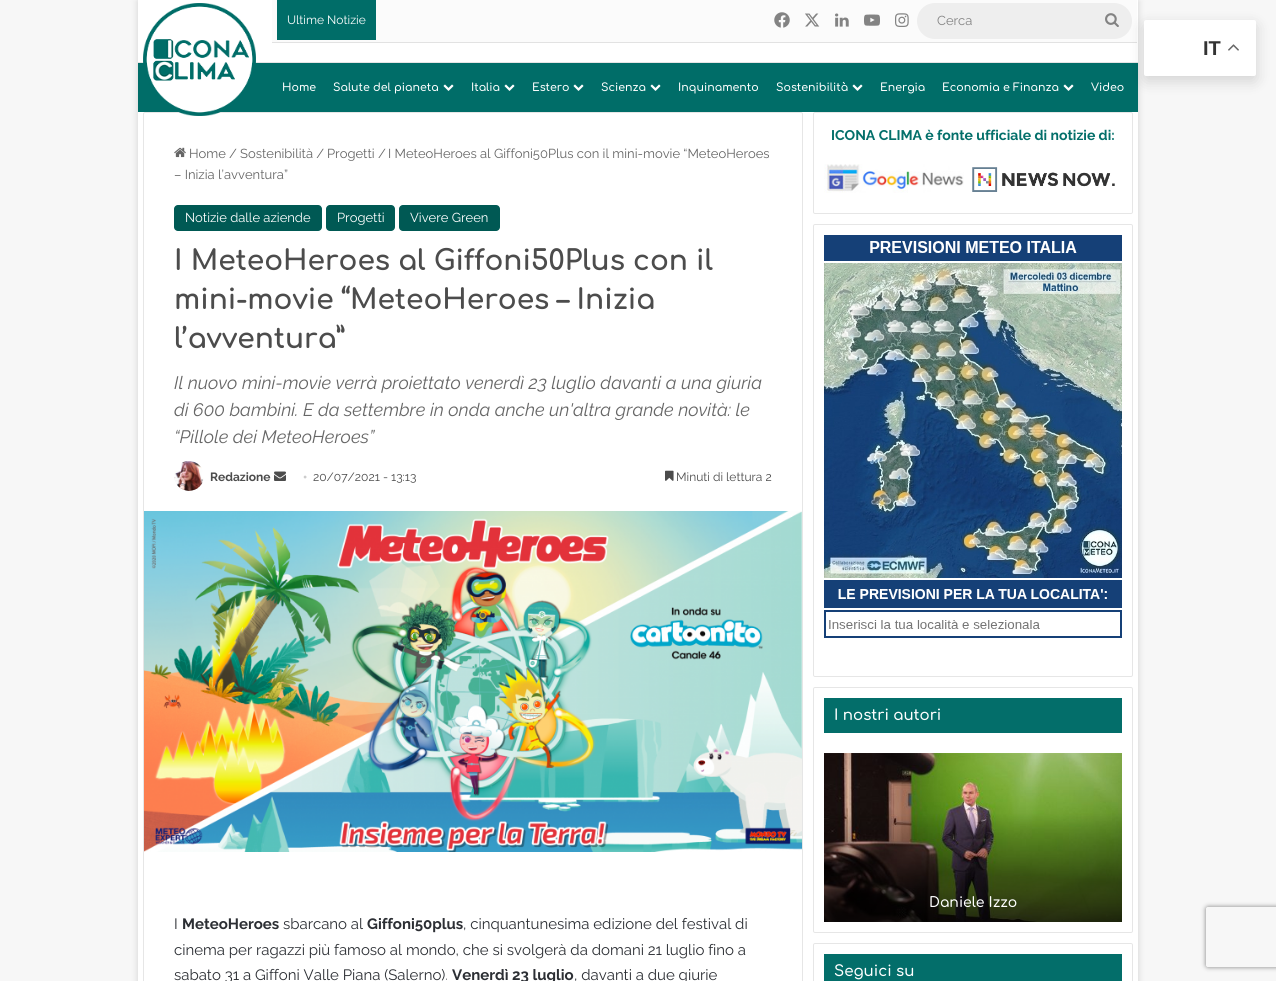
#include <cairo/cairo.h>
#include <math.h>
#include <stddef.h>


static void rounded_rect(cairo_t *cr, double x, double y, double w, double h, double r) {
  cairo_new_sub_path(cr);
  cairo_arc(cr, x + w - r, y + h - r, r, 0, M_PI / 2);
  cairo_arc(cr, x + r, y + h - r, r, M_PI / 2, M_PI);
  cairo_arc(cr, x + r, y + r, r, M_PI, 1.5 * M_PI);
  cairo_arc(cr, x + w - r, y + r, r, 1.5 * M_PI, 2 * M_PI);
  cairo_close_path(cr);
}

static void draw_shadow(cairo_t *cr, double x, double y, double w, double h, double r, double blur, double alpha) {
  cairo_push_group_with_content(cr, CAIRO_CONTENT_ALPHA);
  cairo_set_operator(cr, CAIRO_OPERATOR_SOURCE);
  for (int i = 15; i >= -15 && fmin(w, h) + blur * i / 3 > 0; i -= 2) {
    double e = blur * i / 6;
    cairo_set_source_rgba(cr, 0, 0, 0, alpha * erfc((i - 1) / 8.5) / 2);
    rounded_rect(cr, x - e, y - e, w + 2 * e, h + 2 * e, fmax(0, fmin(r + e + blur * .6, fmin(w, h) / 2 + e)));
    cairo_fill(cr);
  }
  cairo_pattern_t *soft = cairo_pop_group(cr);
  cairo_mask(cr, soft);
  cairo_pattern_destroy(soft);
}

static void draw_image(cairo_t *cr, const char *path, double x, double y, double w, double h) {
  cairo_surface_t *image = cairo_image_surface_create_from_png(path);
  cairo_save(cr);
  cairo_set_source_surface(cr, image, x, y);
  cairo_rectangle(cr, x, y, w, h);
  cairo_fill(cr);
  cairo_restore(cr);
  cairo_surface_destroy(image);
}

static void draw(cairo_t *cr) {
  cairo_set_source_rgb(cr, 247 / 255.0, 247 / 255.0, 247 / 255.0);
  cairo_paint(cr);
  cairo_set_source_rgb(cr, 171 / 255.0, 171 / 255.0, 171 / 255.0);
  draw_shadow(cr, 138, 1, 1000, 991, 0, 3.5, 0.5);
  cairo_set_source_rgb(cr, 1, 1, 1);
  cairo_rectangle(cr, 138, 0, 1000, 981);
  cairo_fill(cr);
  cairo_set_source_rgb(cr, 0, 109 / 255.0, 104 / 255.0);
  cairo_rectangle(cr, 138, 63, 1000, 49);
  cairo_fill(cr);
  cairo_set_source_rgb(cr, 229 / 255.0, 229 / 255.0, 229 / 255.0);
  cairo_rectangle(cr, 138, 62, 1000, 1);
  cairo_fill(cr);
  rounded_rect(cr, 143.5, 112.5, 659, 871, 1.5);
  cairo_set_source_rgb(cr, 230 / 255.0, 230 / 255.0, 230 / 255.0);
  cairo_set_line_width(cr, 1);
  cairo_stroke(cr);
  draw_image(cr, "images/1.png", 143, 3, 113, 113);
  cairo_set_source_rgb(cr, 251 / 255.0, 251 / 255.0, 251 / 255.0);
  cairo_rectangle(cr, 272, 0, 865, 42);
  cairo_fill(cr);
  cairo_set_source_rgb(cr, 226 / 255.0, 226 / 255.0, 226 / 255.0);
  cairo_rectangle(cr, 272, 42, 865, 1);
  cairo_fill(cr);
  cairo_set_source_rgb(cr, 0, 109 / 255.0, 104 / 255.0);
  cairo_rectangle(cr, 277, 0, 99, 40);
  cairo_fill(cr);
  draw_image(cr, "images/2.png", 774, 12, 16, 16);
  draw_image(cr, "images/3.png", 805, 13, 15, 14);
  draw_image(cr, "images/4.png", 835, 13, 14, 14);
  draw_image(cr, "images/5.png", 864, 14, 16, 12);
  draw_image(cr, "images/6.png", 895, 13, 14, 14);
  cairo_set_source_rgb(cr, 238 / 255.0, 238 / 255.0, 238 / 255.0);
  rounded_rect(cr, 917, 3, 215, 36, 18);
  cairo_fill(cr);
  draw_image(cr, "images/7.png", 1105, 13, 14, 14);
  draw_image(cr, "images/8.png", 443, 84, 11, 7);
  draw_image(cr, "images/8.png", 504, 84, 11, 7);
  draw_image(cr, "images/8.png", 573, 84, 11, 7);
  draw_image(cr, "images/8.png", 650, 84, 11, 7);
  draw_image(cr, "images/8.png", 852, 84, 11, 7);
  draw_image(cr, "images/8.png", 1063, 84, 11, 7);
  draw_image(cr, "images/9.png", 174, 147, 12, 11);
  cairo_set_source_rgb(cr, 0, 89 / 255.0, 84 / 255.0);
  rounded_rect(cr, 174, 205, 148, 26, 4);
  cairo_fill(cr);
  rounded_rect(cr, 326, 205, 69, 26, 4);
  cairo_fill(cr);
  rounded_rect(cr, 399, 205, 101, 26, 4);
  cairo_fill(cr);
  draw_image(cr, "images/10.png", 174, 461, 30, 30);
  draw_image(cr, "images/11.png", 274, 471, 12, 10);
  draw_image(cr, "images/12.png", 665, 470, 9, 11);
  draw_image(cr, "images/13.png", 144, 511, 658, 341);
  rounded_rect(cr, 813.5, 112.5, 319, 101, 1.5);
  cairo_set_source_rgb(cr, 230 / 255.0, 230 / 255.0, 230 / 255.0);
  cairo_stroke(cr);
  draw_image(cr, "images/14.png", 824, 164, 140, 29);
  draw_image(cr, "images/15.png", 972, 167, 143, 25);
  rounded_rect(cr, 813.5, 224.5, 319, 452, 1.5);
  cairo_stroke(cr);
  draw_image(cr, "images/16.png", 824, 235, 298, 403);
  rounded_rect(cr, 813.5, 687.5, 319, 245, 1.5);
  cairo_stroke(cr);
  cairo_set_source_rgb(cr, 3 / 255.0, 110 / 255.0, 106 / 255.0);
  cairo_rectangle(cr, 824, 698, 298, 35);
  cairo_fill(cr);
  draw_image(cr, "images/17.png", 824, 753, 298, 169);
  rounded_rect(cr, 813.5, 943.5, 319, 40, 1.5);
  cairo_set_source_rgb(cr, 230 / 255.0, 230 / 255.0, 230 / 255.0);
  cairo_stroke(cr);
  cairo_set_source_rgb(cr, 3 / 255.0, 110 / 255.0, 106 / 255.0);
  cairo_rectangle(cr, 824, 954, 298, 27);
  cairo_fill(cr);
  cairo_set_source_rgb(cr, 0, 0, 0);
  draw_shadow(cr, 1144, 25, 112, 56, 2, 7.5, 0.15);
  cairo_set_source_rgb(cr, 1, 1, 1);
  rounded_rect(cr, 1144, 20, 112, 56, 2);
  cairo_fill(cr);
  draw_image(cr, "images/18.png", 1228, 44, 11, 7);
  cairo_save(cr);
  cairo_set_fill_rule(cr, CAIRO_FILL_RULE_EVEN_ODD);
  cairo_new_path(cr);
  cairo_move_to(cr, 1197, 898);
  cairo_line_to(cr, 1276, 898);
  cairo_line_to(cr, 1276, 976);
  cairo_line_to(cr, 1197, 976);
  cairo_close_path(cr);
  cairo_move_to(cr, 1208, 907);
  cairo_line_to(cr, 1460, 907);
  cairo_curve_to(cr, 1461, 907, 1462, 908, 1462, 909);
  cairo_line_to(cr, 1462, 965);
  cairo_curve_to(cr, 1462, 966, 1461, 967, 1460, 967);
  cairo_line_to(cr, 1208, 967);
  cairo_curve_to(cr, 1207, 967, 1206, 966, 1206, 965);
  cairo_line_to(cr, 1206, 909);
  cairo_curve_to(cr, 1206, 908, 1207, 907, 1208, 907);
  cairo_close_path(cr);
  cairo_clip(cr);
  cairo_set_source_rgb(cr, 128 / 255.0, 128 / 255.0, 128 / 255.0);
  draw_shadow(cr, 1206, 907, 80, 60, 2, 2.5, 1);
  cairo_restore(cr);
  cairo_select_font_face(cr, "Raleway", CAIRO_FONT_SLANT_NORMAL, CAIRO_FONT_WEIGHT_NORMAL);
  cairo_set_font_size(cr, 12);
  cairo_move_to(cr, 287, 24);
  cairo_show_text(cr, "Ultime Notizie");
  cairo_set_font_size(cr, 13);
  cairo_set_source_rgb(cr, 131 / 255.0, 131 / 255.0, 131 / 255.0);
  cairo_move_to(cr, 937, 25);
  cairo_show_text(cr, "Cerca");
  cairo_select_font_face(cr, "Comfortaa SemiBold", CAIRO_FONT_SLANT_NORMAL, CAIRO_FONT_WEIGHT_NORMAL);
  cairo_set_font_size(cr, 11);
  cairo_set_source_rgb(cr, 1, 1, 1);
  cairo_move_to(cr, 282, 91);
  cairo_show_text(cr, "Home");
  cairo_move_to(cr, 333, 91);
  cairo_show_text(cr, "Salute del pianeta");
  cairo_move_to(cr, 471, 91);
  cairo_show_text(cr, "Italia");
  cairo_move_to(cr, 532, 91);
  cairo_show_text(cr, "Estero");
  cairo_move_to(cr, 601, 91);
  cairo_show_text(cr, "Scienza");
  cairo_move_to(cr, 678, 91);
  cairo_show_text(cr, "Inquinamento");
  cairo_move_to(cr, 776, 91);
  cairo_show_text(cr, "Sostenibilità");
  cairo_move_to(cr, 880, 91);
  cairo_show_text(cr, "Energia");
  cairo_move_to(cr, 942, 91);
  cairo_show_text(cr, "Economia e Finanza");
  cairo_move_to(cr, 1091, 91);
  cairo_show_text(cr, "Video");
  cairo_select_font_face(cr, "Raleway", CAIRO_FONT_SLANT_NORMAL, CAIRO_FONT_WEIGHT_NORMAL);
  cairo_set_font_size(cr, 13);
  cairo_set_source_rgb(cr, 102 / 255.0, 102 / 255.0, 102 / 255.0);
  cairo_move_to(cr, 189, 158);
  cairo_show_text(cr, "Home");
  cairo_move_to(cr, 229, 158);
  cairo_show_text(cr, "/");
  cairo_move_to(cr, 240, 158);
  cairo_show_text(cr, "Sostenibilità /");
  cairo_move_to(cr, 327, 158);
  cairo_show_text(cr, "Progetti");
  cairo_move_to(cr, 378, 158);
  cairo_show_text(cr, "/");
  cairo_move_to(cr, 388, 158);
  cairo_show_text(cr, "I MeteoHeroes al Giffoni50Plus con il mini-movie “MeteoHeroes");
  cairo_move_to(cr, 174, 179);
  cairo_show_text(cr, "– Inizia l’avventura”");
  cairo_set_source_rgb(cr, 1, 1, 1);
  cairo_move_to(cr, 185, 222);
  cairo_show_text(cr, "Notizie dalle aziende");
  cairo_move_to(cr, 337, 222);
  cairo_show_text(cr, "Progetti");
  cairo_move_to(cr, 410, 222);
  cairo_show_text(cr, "Vivere Green");
  cairo_select_font_face(cr, "Comfortaa", CAIRO_FONT_SLANT_NORMAL, CAIRO_FONT_WEIGHT_BOLD);
  cairo_set_font_size(cr, 28);
  cairo_set_source_rgb(cr, 76 / 255.0, 76 / 255.0, 76 / 255.0);
  cairo_move_to(cr, 174, 270);
  cairo_show_text(cr, "I MeteoHeroes al Giffoni50Plus con il");
  cairo_move_to(cr, 174, 309);
  cairo_show_text(cr, "mini-movie “MeteoHeroes – Inizia");
  cairo_move_to(cr, 174, 348);
  cairo_show_text(cr, "l’avventura”");
  cairo_select_font_face(cr, "Raleway", CAIRO_FONT_SLANT_ITALIC, CAIRO_FONT_WEIGHT_NORMAL);
  cairo_set_font_size(cr, 18);
  cairo_set_source_rgb(cr, 102 / 255.0, 102 / 255.0, 102 / 255.0);
  cairo_move_to(cr, 174, 389);
  cairo_show_text(cr, "Il nuovo mini-movie verrà proiettato venerdì 23 luglio davanti a una giuria");
  cairo_move_to(cr, 174, 416);
  cairo_show_text(cr, "di 600 bambini. E da settembre in onda anche un'altra grande novità: le");
  cairo_move_to(cr, 174, 443);
  cairo_show_text(cr, "“Pillole dei MeteoHeroes”");
  cairo_select_font_face(cr, "Raleway", CAIRO_FONT_SLANT_NORMAL, CAIRO_FONT_WEIGHT_BOLD);
  cairo_set_font_size(cr, 12);
  cairo_set_source_rgb(cr, 76 / 255.0, 76 / 255.0, 76 / 255.0);
  cairo_move_to(cr, 210, 481);
  cairo_show_text(cr, "Redazione");
  cairo_select_font_face(cr, "Liberation Serif", CAIRO_FONT_SLANT_NORMAL, CAIRO_FONT_WEIGHT_NORMAL);
  cairo_set_source_rgb(cr, 204 / 255.0, 204 / 255.0, 204 / 255.0);
  cairo_move_to(cr, 303, 481);
  cairo_show_text(cr, "•");
  cairo_select_font_face(cr, "Raleway", CAIRO_FONT_SLANT_NORMAL, CAIRO_FONT_WEIGHT_NORMAL);
  cairo_set_source_rgb(cr, 76 / 255.0, 76 / 255.0, 76 / 255.0);
  cairo_move_to(cr, 313, 481);
  cairo_show_text(cr, "20/07/2021 - 13:13");
  cairo_move_to(cr, 676, 481);
  cairo_show_text(cr, "Minuti di lettura 2");
  cairo_set_font_size(cr, 15);
  cairo_set_source_rgb(cr, 44 / 255.0, 47 / 255.0, 52 / 255.0);
  cairo_move_to(cr, 174, 929);
  cairo_show_text(cr, "I");
  cairo_select_font_face(cr, "Raleway", CAIRO_FONT_SLANT_NORMAL, CAIRO_FONT_WEIGHT_BOLD);
  cairo_move_to(cr, 182, 929);
  cairo_show_text(cr, "MeteoHeroes");
  cairo_select_font_face(cr, "Raleway", CAIRO_FONT_SLANT_NORMAL, CAIRO_FONT_WEIGHT_NORMAL);
  cairo_move_to(cr, 283, 929);
  cairo_show_text(cr, "sbarcano al");
  cairo_select_font_face(cr, "Raleway", CAIRO_FONT_SLANT_NORMAL, CAIRO_FONT_WEIGHT_BOLD);
  cairo_move_to(cr, 367, 929);
  cairo_show_text(cr, "Giffoni50plus");
  cairo_select_font_face(cr, "Raleway", CAIRO_FONT_SLANT_NORMAL, CAIRO_FONT_WEIGHT_NORMAL);
  cairo_move_to(cr, 463, 929);
  cairo_show_text(cr, ", cinquantunesima edizione del festival di");
  cairo_move_to(cr, 174, 955);
  cairo_show_text(cr, "cinema per ragazzi più famoso al mondo, che si svolgerà da domani 21 luglio fino a");
  cairo_move_to(cr, 174, 980);
  cairo_show_text(cr, "sabato 31 a Giffoni Valle Piana (Salerno).");
  cairo_select_font_face(cr, "Raleway", CAIRO_FONT_SLANT_NORMAL, CAIRO_FONT_WEIGHT_BOLD);
  cairo_move_to(cr, 452, 980);
  cairo_show_text(cr, "Venerdì 23 luglio");
  cairo_select_font_face(cr, "Raleway", CAIRO_FONT_SLANT_NORMAL, CAIRO_FONT_WEIGHT_NORMAL);
  cairo_move_to(cr, 574, 980);
  cairo_show_text(cr, ", davanti a due giurie");
  cairo_select_font_face(cr, "Raleway", CAIRO_FONT_SLANT_NORMAL, CAIRO_FONT_WEIGHT_BOLD);
  cairo_set_font_size(cr, 14);
  cairo_set_source_rgb(cr, 3 / 255.0, 111 / 255.0, 106 / 255.0);
  cairo_move_to(cr, 831, 140);
  cairo_show_text(cr, "ICONA CLIMA è fonte ufficiale di notizie di:");
  cairo_select_font_face(cr, "Comfortaa SemiBold", CAIRO_FONT_SLANT_NORMAL, CAIRO_FONT_WEIGHT_NORMAL);
  cairo_set_font_size(cr, 15);
  cairo_set_source_rgb(cr, 1, 1, 1);
  cairo_move_to(cr, 834, 720);
  cairo_show_text(cr, "I nostri autori");
  cairo_set_font_size(cr, 14);
  cairo_move_to(cr, 929, 907);
  cairo_show_text(cr, "Daniele Izzo");
  cairo_set_font_size(cr, 15);
  cairo_move_to(cr, 834, 976);
  cairo_show_text(cr, "Seguici su");
  cairo_select_font_face(cr, "Liberation Sans", CAIRO_FONT_SLANT_NORMAL, CAIRO_FONT_WEIGHT_BOLD);
  cairo_set_font_size(cr, 20);
  cairo_set_source_rgb(cr, 51 / 255.0, 51 / 255.0, 51 / 255.0);
  cairo_move_to(cr, 1203, 55);
  cairo_show_text(cr, "IT");
}

int main(void) {
  cairo_surface_t *surface = cairo_image_surface_create(CAIRO_FORMAT_RGB24, 1276, 981);
  cairo_t *cr = cairo_create(surface);
  cairo_font_options_t *options = cairo_font_options_create();
  cairo_font_options_set_hint_metrics(options, CAIRO_HINT_METRICS_OFF);
  cairo_font_options_set_hint_style(options, CAIRO_HINT_STYLE_NONE);
  cairo_set_font_options(cr, options);
  cairo_set_miter_limit(cr, 4);
  draw(cr);
  cairo_surface_write_to_png(surface, "out.png");
  cairo_font_options_destroy(options);
  cairo_destroy(cr);
  cairo_surface_destroy(surface);
  return 0;
}
